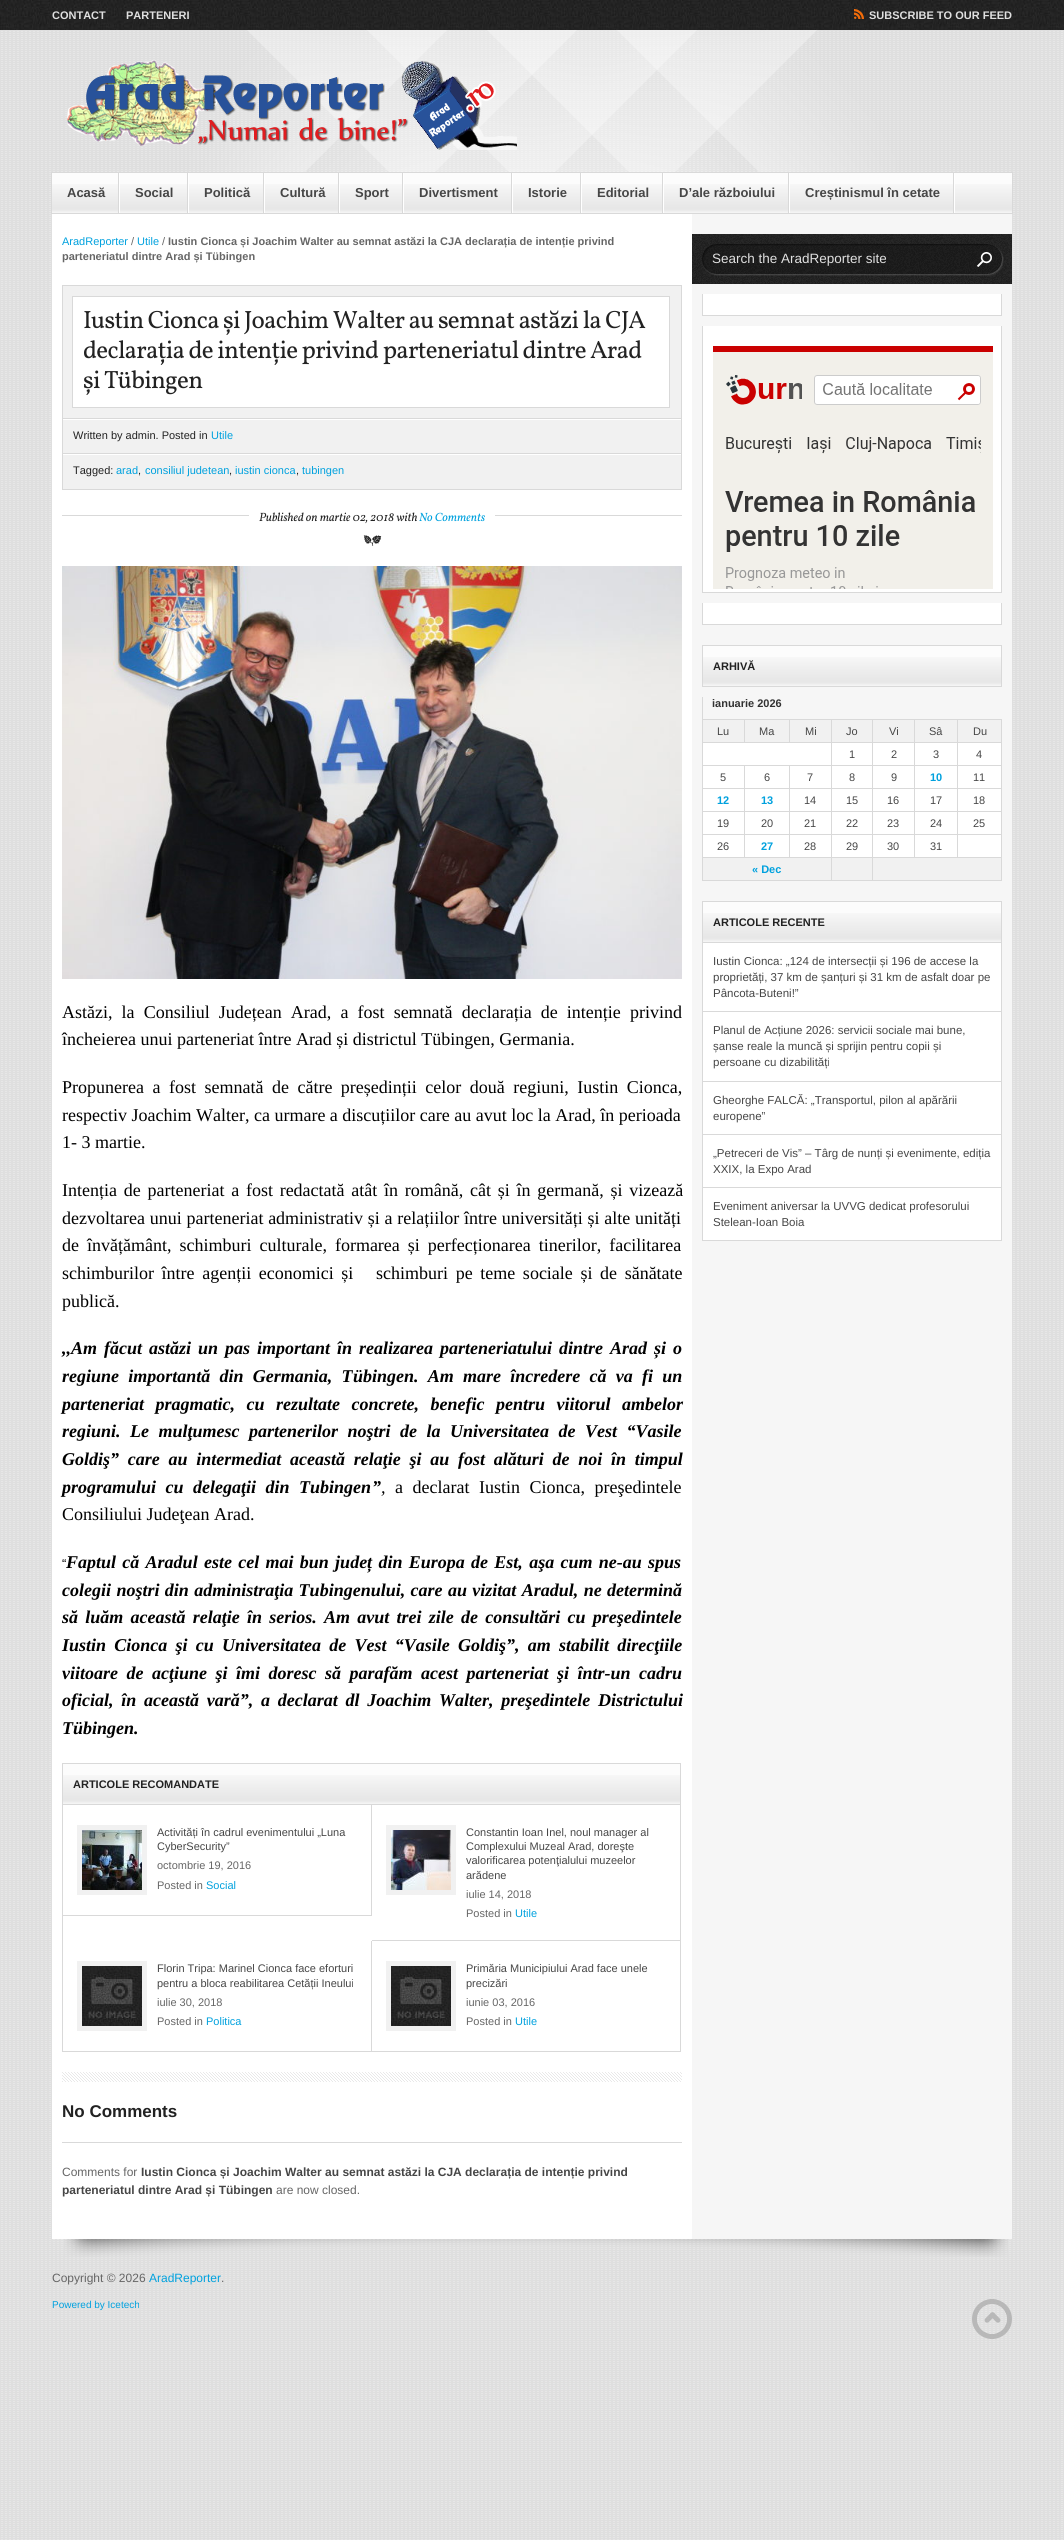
#include <cairo/cairo.h>
#include <math.h>
#include <stddef.h>


static void draw_spaced(cairo_t *cr, double x, double y, const char *s, double letter, double word) {
  cairo_move_to(cr, x, y);
  while (*s) {
    char ch[5] = {0};
    int n = 0;
    do ch[n++] = *s++; while ((*s & 0xC0) == 0x80);
    cairo_show_text(cr, ch);
    cairo_rel_move_to(cr, letter + word * (*ch == ' '), 0);
  }
}

static void draw_image(cairo_t *cr, const char *path, double x, double y, double w, double h) {
  cairo_surface_t *image = cairo_image_surface_create_from_png(path);
  cairo_save(cr);
  cairo_set_source_surface(cr, image, x, y);
  cairo_rectangle(cr, x, y, w, h);
  cairo_fill(cr);
  cairo_restore(cr);
  cairo_surface_destroy(image);
}

static void draw(cairo_t *cr) {
  cairo_set_source_rgb(cr, 1, 1, 1);
  cairo_paint(cr);
  draw_image(cr, "images/1.png", 0, 30, 1064, 2510);
  draw_image(cr, "images/2.png", 190, 30, 706, 142);
  draw_image(cr, "images/3.png", 0, 0, 1064, 30);
  draw_image(cr, "images/4.png", 854, 9, 10, 10);
  draw_image(cr, "images/5.png", 67, 60, 450, 90);
  cairo_set_source_rgb(cr, 252 / 255.0, 252 / 255.0, 252 / 255.0);
  cairo_rectangle(cr, 52, 173, 960, 11);
  cairo_fill(cr);
  draw_image(cr, "images/6.png", 52, 184, 960, 29);
  cairo_rectangle(cr, 51.5, 172.5, 961, 41);
  cairo_set_source_rgb(cr, 217 / 255.0, 217 / 255.0, 217 / 255.0);
  cairo_set_line_width(cr, 1);
  cairo_stroke(cr);
  draw_image(cr, "images/7.png", 118, 173, 2, 40);
  draw_image(cr, "images/7.png", 187, 173, 2, 40);
  draw_image(cr, "images/7.png", 263, 173, 2, 40);
  draw_image(cr, "images/7.png", 338, 173, 2, 40);
  draw_image(cr, "images/7.png", 402, 173, 2, 40);
  draw_image(cr, "images/7.png", 511, 173, 2, 40);
  draw_image(cr, "images/7.png", 580, 173, 2, 40);
  draw_image(cr, "images/7.png", 662, 173, 2, 40);
  draw_image(cr, "images/7.png", 788, 173, 2, 40);
  draw_image(cr, "images/7.png", 953, 173, 2, 40);
  cairo_set_source_rgb(cr, 1, 1, 1);
  cairo_rectangle(cr, 52, 214, 640, 2025);
  cairo_fill(cr);
  cairo_set_source_rgb(cr, 246 / 255.0, 246 / 255.0, 246 / 255.0);
  cairo_rectangle(cr, 692, 214, 320, 2025);
  cairo_fill(cr);
  cairo_set_source_rgb(cr, 241 / 255.0, 241 / 255.0, 241 / 255.0);
  cairo_rectangle(cr, 62.5, 285.5, 619, 204);
  cairo_fill_preserve(cr);
  cairo_set_source_rgb(cr, 217 / 255.0, 217 / 255.0, 217 / 255.0);
  cairo_stroke(cr);
  cairo_set_source_rgb(cr, 1, 1, 1);
  cairo_rectangle(cr, 72.5, 296.5, 597, 111);
  cairo_fill_preserve(cr);
  cairo_set_source_rgb(cr, 217 / 255.0, 217 / 255.0, 217 / 255.0);
  cairo_stroke(cr);
  draw_image(cr, "images/8.png", 63, 418, 618, 2);
  draw_image(cr, "images/8.png", 63, 453, 618, 2);
  cairo_rectangle(cr, 62, 515, 620, 1);
  cairo_fill(cr);
  cairo_set_source_rgb(cr, 1, 1, 1);
  cairo_rectangle(cr, 249, 515, 246, 1);
  cairo_fill(cr);
  draw_image(cr, "images/9.png", 363, 535, 19, 11);
  draw_image(cr, "images/10.png", 62, 566, 620, 413);
  cairo_set_source_rgb(cr, 252 / 255.0, 252 / 255.0, 252 / 255.0);
  cairo_rectangle(cr, 63, 1764, 617, 11);
  cairo_fill(cr);
  draw_image(cr, "images/11.png", 63, 1775, 617, 29);
  cairo_set_source_rgb(cr, 217 / 255.0, 217 / 255.0, 217 / 255.0);
  cairo_rectangle(cr, 62, 1763, 619, 1);
  cairo_fill(cr);
  cairo_rectangle(cr, 680, 1763, 1, 41);
  cairo_fill(cr);
  cairo_rectangle(cr, 62, 1763, 1, 41);
  cairo_fill(cr);
  cairo_rectangle(cr, 62, 1804, 619, 1);
  cairo_fill(cr);
  cairo_rectangle(cr, 62, 1804, 1, 248);
  cairo_fill(cr);
  cairo_rectangle(cr, 371, 1805, 1, 111);
  cairo_fill(cr);
  cairo_rectangle(cr, 63, 1915, 309, 1);
  cairo_fill(cr);
  cairo_rectangle(cr, 79.5, 1827.5, 65, 65);
  cairo_set_source_rgb(cr, 241 / 255.0, 241 / 255.0, 241 / 255.0);
  cairo_set_line_width(cr, 5);
  cairo_stroke(cr);
  draw_image(cr, "images/12.png", 82, 1830, 60, 60);
  cairo_set_source_rgb(cr, 217 / 255.0, 217 / 255.0, 217 / 255.0);
  cairo_rectangle(cr, 680, 1805, 1, 247);
  cairo_fill(cr);
  cairo_rectangle(cr, 372, 1940, 309, 1);
  cairo_fill(cr);
  cairo_rectangle(cr, 388.5, 1827.5, 65, 65);
  cairo_set_source_rgb(cr, 241 / 255.0, 241 / 255.0, 241 / 255.0);
  cairo_stroke(cr);
  draw_image(cr, "images/13.png", 391, 1830, 60, 60);
  cairo_set_source_rgb(cr, 217 / 255.0, 217 / 255.0, 217 / 255.0);
  cairo_rectangle(cr, 371, 1941, 1, 111);
  cairo_fill(cr);
  cairo_rectangle(cr, 63, 2051, 618, 1);
  cairo_fill(cr);
  cairo_rectangle(cr, 79.5, 1963.5, 65, 65);
  cairo_set_source_rgb(cr, 241 / 255.0, 241 / 255.0, 241 / 255.0);
  cairo_stroke(cr);
  draw_image(cr, "images/14.png", 82, 1966, 60, 60);
  cairo_rectangle(cr, 388.5, 1963.5, 65, 65);
  cairo_stroke(cr);
  draw_image(cr, "images/14.png", 391, 1966, 60, 60);
  draw_image(cr, "images/15.png", 62, 2072, 620, 10);
  cairo_set_source_rgb(cr, 217 / 255.0, 217 / 255.0, 217 / 255.0);
  cairo_rectangle(cr, 62, 2142, 620, 1);
  cairo_fill(cr);
  draw_image(cr, "images/16.png", 692, 234, 320, 50);
  draw_image(cr, "images/17.png", 977, 252, 15, 15);
  cairo_set_source_rgb(cr, 1, 1, 1);
  cairo_rectangle(cr, 703, 294, 298, 21);
  cairo_fill(cr);
  cairo_set_source_rgb(cr, 217 / 255.0, 217 / 255.0, 217 / 255.0);
  cairo_rectangle(cr, 1001, 294, 1, 22);
  cairo_fill(cr);
  cairo_rectangle(cr, 702, 315, 300, 1);
  cairo_fill(cr);
  cairo_rectangle(cr, 702, 294, 1, 22);
  cairo_fill(cr);
  cairo_set_source_rgb(cr, 1, 1, 1);
  cairo_rectangle(cr, 703, 326, 298, 266);
  cairo_fill(cr);
  cairo_set_source_rgb(cr, 217 / 255.0, 217 / 255.0, 217 / 255.0);
  cairo_rectangle(cr, 1001, 326, 1, 267);
  cairo_fill(cr);
  cairo_rectangle(cr, 702, 592, 300, 1);
  cairo_fill(cr);
  cairo_rectangle(cr, 702, 326, 1, 267);
  cairo_fill(cr);
  draw_image(cr, "images/18.png", 713, 346, 280, 243);
  cairo_set_source_rgb(cr, 1, 1, 1);
  cairo_rectangle(cr, 703, 603, 298, 21);
  cairo_fill(cr);
  cairo_set_source_rgb(cr, 217 / 255.0, 217 / 255.0, 217 / 255.0);
  cairo_rectangle(cr, 1001, 603, 1, 22);
  cairo_fill(cr);
  cairo_rectangle(cr, 702, 624, 300, 1);
  cairo_fill(cr);
  cairo_rectangle(cr, 702, 603, 1, 22);
  cairo_fill(cr);
  cairo_set_source_rgb(cr, 252 / 255.0, 252 / 255.0, 252 / 255.0);
  cairo_rectangle(cr, 703, 646, 298, 11);
  cairo_fill(cr);
  draw_image(cr, "images/19.png", 703, 657, 298, 29);
  cairo_rectangle(cr, 702.5, 645.5, 299, 41);
  cairo_set_source_rgb(cr, 217 / 255.0, 217 / 255.0, 217 / 255.0);
  cairo_set_line_width(cr, 1);
  cairo_stroke(cr);
  cairo_rectangle(cr, 702, 697, 1, 184);
  cairo_fill(cr);
  cairo_set_source_rgb(cr, 241 / 255.0, 241 / 255.0, 241 / 255.0);
  cairo_rectangle(cr, 703, 720, 298, 22);
  cairo_fill(cr);
  cairo_set_source_rgb(cr, 217 / 255.0, 217 / 255.0, 217 / 255.0);
  cairo_rectangle(cr, 703, 719, 299, 1);
  cairo_fill(cr);
  cairo_rectangle(cr, 744, 719, 1, 24);
  cairo_fill(cr);
  cairo_rectangle(cr, 703, 742, 42, 1);
  cairo_fill(cr);
  cairo_rectangle(cr, 789, 719, 1, 24);
  cairo_fill(cr);
  cairo_rectangle(cr, 745, 742, 45, 1);
  cairo_fill(cr);
  cairo_rectangle(cr, 831, 719, 1, 24);
  cairo_fill(cr);
  cairo_rectangle(cr, 790, 742, 42, 1);
  cairo_fill(cr);
  cairo_rectangle(cr, 872, 719, 1, 24);
  cairo_fill(cr);
  cairo_rectangle(cr, 832, 742, 41, 1);
  cairo_fill(cr);
  cairo_rectangle(cr, 914, 719, 1, 24);
  cairo_fill(cr);
  cairo_rectangle(cr, 873, 742, 42, 1);
  cairo_fill(cr);
  cairo_rectangle(cr, 957, 719, 1, 24);
  cairo_fill(cr);
  cairo_rectangle(cr, 915, 742, 43, 1);
  cairo_fill(cr);
  cairo_rectangle(cr, 1001, 719, 1, 116);
  cairo_fill(cr);
  cairo_rectangle(cr, 958, 742, 44, 1);
  cairo_fill(cr);
  cairo_set_source_rgb(cr, 1, 1, 1);
  cairo_rectangle(cr, 703, 743, 298, 114);
  cairo_fill(cr);
  cairo_set_source_rgb(cr, 217 / 255.0, 217 / 255.0, 217 / 255.0);
  cairo_rectangle(cr, 831, 743, 1, 115);
  cairo_fill(cr);
  cairo_rectangle(cr, 703, 765, 129, 1);
  cairo_fill(cr);
  cairo_rectangle(cr, 872, 743, 1, 115);
  cairo_fill(cr);
  cairo_rectangle(cr, 832, 765, 41, 1);
  cairo_fill(cr);
  cairo_rectangle(cr, 914, 743, 1, 115);
  cairo_fill(cr);
  cairo_rectangle(cr, 873, 765, 42, 1);
  cairo_fill(cr);
  cairo_rectangle(cr, 957, 743, 1, 115);
  cairo_fill(cr);
  cairo_rectangle(cr, 915, 765, 87, 1);
  cairo_fill(cr);
  cairo_rectangle(cr, 744, 766, 1, 92);
  cairo_fill(cr);
  cairo_rectangle(cr, 703, 788, 42, 1);
  cairo_fill(cr);
  cairo_rectangle(cr, 789, 766, 1, 92);
  cairo_fill(cr);
  cairo_rectangle(cr, 745, 788, 257, 1);
  cairo_fill(cr);
  cairo_rectangle(cr, 703, 811, 299, 1);
  cairo_fill(cr);
  cairo_rectangle(cr, 703, 834, 299, 1);
  cairo_fill(cr);
  cairo_rectangle(cr, 1001, 835, 1, 46);
  cairo_fill(cr);
  cairo_rectangle(cr, 703, 857, 299, 1);
  cairo_fill(cr);
  cairo_set_source_rgb(cr, 241 / 255.0, 241 / 255.0, 241 / 255.0);
  cairo_rectangle(cr, 703, 858, 298, 22);
  cairo_fill(cr);
  cairo_set_source_rgb(cr, 217 / 255.0, 217 / 255.0, 217 / 255.0);
  cairo_rectangle(cr, 831, 858, 1, 23);
  cairo_fill(cr);
  cairo_rectangle(cr, 703, 880, 129, 1);
  cairo_fill(cr);
  cairo_rectangle(cr, 872, 858, 1, 23);
  cairo_fill(cr);
  cairo_rectangle(cr, 832, 880, 41, 1);
  cairo_fill(cr);
  cairo_rectangle(cr, 873, 880, 129, 1);
  cairo_fill(cr);
  cairo_set_source_rgb(cr, 252 / 255.0, 252 / 255.0, 252 / 255.0);
  cairo_rectangle(cr, 703, 902, 298, 11);
  cairo_fill(cr);
  draw_image(cr, "images/19.png", 703, 913, 298, 29);
  cairo_rectangle(cr, 702.5, 901.5, 299, 41);
  cairo_set_source_rgb(cr, 217 / 255.0, 217 / 255.0, 217 / 255.0);
  cairo_stroke(cr);
  cairo_set_source_rgb(cr, 1, 1, 1);
  cairo_rectangle(cr, 703, 943, 298, 68);
  cairo_fill(cr);
  cairo_set_source_rgb(cr, 217 / 255.0, 217 / 255.0, 217 / 255.0);
  cairo_rectangle(cr, 1001, 943, 1, 298);
  cairo_fill(cr);
  cairo_rectangle(cr, 702, 1011, 300, 1);
  cairo_fill(cr);
  cairo_rectangle(cr, 702, 943, 1, 69);
  cairo_fill(cr);
  cairo_set_source_rgb(cr, 1, 1, 1);
  cairo_rectangle(cr, 703, 1012, 298, 69);
  cairo_fill(cr);
  cairo_set_source_rgb(cr, 217 / 255.0, 217 / 255.0, 217 / 255.0);
  cairo_rectangle(cr, 702, 1081, 300, 1);
  cairo_fill(cr);
  cairo_rectangle(cr, 702, 1012, 1, 70);
  cairo_fill(cr);
  cairo_set_source_rgb(cr, 1, 1, 1);
  cairo_rectangle(cr, 703, 1082, 298, 52);
  cairo_fill(cr);
  cairo_set_source_rgb(cr, 217 / 255.0, 217 / 255.0, 217 / 255.0);
  cairo_rectangle(cr, 702, 1134, 300, 1);
  cairo_fill(cr);
  cairo_rectangle(cr, 702, 1082, 1, 53);
  cairo_fill(cr);
  cairo_set_source_rgb(cr, 1, 1, 1);
  cairo_rectangle(cr, 703, 1135, 298, 52);
  cairo_fill(cr);
  cairo_set_source_rgb(cr, 217 / 255.0, 217 / 255.0, 217 / 255.0);
  cairo_rectangle(cr, 702, 1187, 300, 1);
  cairo_fill(cr);
  cairo_rectangle(cr, 702, 1135, 1, 53);
  cairo_fill(cr);
  cairo_set_source_rgb(cr, 1, 1, 1);
  cairo_rectangle(cr, 703, 1188, 298, 52);
  cairo_fill(cr);
  cairo_set_source_rgb(cr, 217 / 255.0, 217 / 255.0, 217 / 255.0);
  cairo_rectangle(cr, 702, 1240, 300, 1);
  cairo_fill(cr);
  cairo_rectangle(cr, 702, 1188, 1, 53);
  cairo_fill(cr);
  draw_image(cr, "images/20.png", 64, 2239, 944, 18);
  draw_image(cr, "images/21.png", 972, 2299, 40, 40);
  cairo_select_font_face(cr, "Liberation Sans", CAIRO_FONT_SLANT_NORMAL, CAIRO_FONT_WEIGHT_BOLD);
  cairo_set_font_size(cr, 11);
  cairo_set_source_rgb(cr, 224 / 255.0, 224 / 255.0, 224 / 255.0);
  cairo_move_to(cr, 52, 19);
  cairo_show_text(cr, "CONTACT");
  cairo_move_to(cr, 126, 19);
  cairo_show_text(cr, "PARTENERI");
  cairo_move_to(cr, 869, 19);
  cairo_show_text(cr, "SUBSCRIBE TO OUR FEED");
  cairo_set_font_size(cr, 13);
  cairo_set_source_rgb(cr, 70 / 255.0, 70 / 255.0, 70 / 255.0);
  cairo_move_to(cr, 67, 197);
  cairo_show_text(cr, "Acasă");
  cairo_move_to(cr, 135, 197);
  cairo_show_text(cr, "Social");
  cairo_move_to(cr, 204, 197);
  cairo_show_text(cr, "Politică");
  cairo_move_to(cr, 280, 197);
  cairo_show_text(cr, "Cultură");
  cairo_move_to(cr, 355, 197);
  cairo_show_text(cr, "Sport");
  cairo_move_to(cr, 419, 197);
  cairo_show_text(cr, "Divertisment");
  cairo_move_to(cr, 528, 197);
  cairo_show_text(cr, "Istorie");
  cairo_move_to(cr, 597, 197);
  cairo_show_text(cr, "Editorial");
  cairo_move_to(cr, 679, 197);
  cairo_show_text(cr, "D’ale războiului");
  cairo_move_to(cr, 805, 197);
  cairo_show_text(cr, "Creștinismul în cetate");
  cairo_select_font_face(cr, "Liberation Sans", CAIRO_FONT_SLANT_NORMAL, CAIRO_FONT_WEIGHT_NORMAL);
  cairo_set_font_size(cr, 11);
  cairo_set_source_rgb(cr, 0, 161 / 255.0, 222 / 255.0);
  cairo_move_to(cr, 62, 245);
  cairo_show_text(cr, "AradReporter");
  cairo_set_source_rgb(cr, 102 / 255.0, 102 / 255.0, 102 / 255.0);
  cairo_move_to(cr, 131, 245);
  cairo_show_text(cr, "/");
  cairo_set_source_rgb(cr, 0, 161 / 255.0, 222 / 255.0);
  cairo_move_to(cr, 137, 245);
  cairo_show_text(cr, "Utile");
  cairo_set_source_rgb(cr, 102 / 255.0, 102 / 255.0, 102 / 255.0);
  cairo_move_to(cr, 162, 245);
  cairo_show_text(cr, "/");
  cairo_select_font_face(cr, "Liberation Sans", CAIRO_FONT_SLANT_NORMAL, CAIRO_FONT_WEIGHT_BOLD);
  cairo_move_to(cr, 168, 245);
  cairo_show_text(cr, "Iustin Cionca și Joachim Walter au semnat astăzi la CJA declarația de intenție privind");
  cairo_move_to(cr, 62, 260);
  cairo_show_text(cr, "parteneriatul dintre Arad și Tübingen");
  cairo_select_font_face(cr, "Vollkorn", CAIRO_FONT_SLANT_NORMAL, CAIRO_FONT_WEIGHT_NORMAL);
  cairo_set_font_size(cr, 25);
  cairo_set_source_rgb(cr, 34 / 255.0, 34 / 255.0, 34 / 255.0);
  draw_spaced(cr, 83, 328, "Iustin Cionca și Joachim Walter au semnat astăzi la CJA", -0.75, 0);
  draw_spaced(cr, 83, 358, "declarația de intenție privind parteneriatul dintre Arad", -0.75, 0);
  draw_spaced(cr, 83, 388, "și Tübingen", -0.75, 0);
  cairo_select_font_face(cr, "Liberation Sans", CAIRO_FONT_SLANT_NORMAL, CAIRO_FONT_WEIGHT_NORMAL);
  cairo_set_font_size(cr, 11);
  cairo_move_to(cr, 73, 439);
  cairo_show_text(cr, "Written by admin. Posted in");
  cairo_set_source_rgb(cr, 0, 161 / 255.0, 222 / 255.0);
  cairo_move_to(cr, 211, 439);
  cairo_show_text(cr, "Utile");
  cairo_set_source_rgb(cr, 34 / 255.0, 34 / 255.0, 34 / 255.0);
  cairo_move_to(cr, 73, 474);
  cairo_show_text(cr, "Tagged:");
  cairo_set_source_rgb(cr, 0, 161 / 255.0, 222 / 255.0);
  cairo_move_to(cr, 116, 474);
  cairo_show_text(cr, "arad");
  cairo_set_source_rgb(cr, 34 / 255.0, 34 / 255.0, 34 / 255.0);
  cairo_move_to(cr, 138, 474);
  cairo_show_text(cr, ",");
  cairo_set_source_rgb(cr, 0, 161 / 255.0, 222 / 255.0);
  cairo_move_to(cr, 145, 474);
  cairo_show_text(cr, "consiliul judetean");
  cairo_set_source_rgb(cr, 34 / 255.0, 34 / 255.0, 34 / 255.0);
  cairo_move_to(cr, 229, 474);
  cairo_show_text(cr, ",");
  cairo_set_source_rgb(cr, 0, 161 / 255.0, 222 / 255.0);
  cairo_move_to(cr, 235, 474);
  cairo_show_text(cr, "iustin cionca");
  cairo_set_source_rgb(cr, 34 / 255.0, 34 / 255.0, 34 / 255.0);
  cairo_move_to(cr, 296, 474);
  cairo_show_text(cr, ",");
  cairo_set_source_rgb(cr, 0, 161 / 255.0, 222 / 255.0);
  cairo_move_to(cr, 302, 474);
  cairo_show_text(cr, "tubingen");
  cairo_select_font_face(cr, "Vollkorn", CAIRO_FONT_SLANT_ITALIC, CAIRO_FONT_WEIGHT_NORMAL);
  cairo_set_font_size(cr, 12);
  cairo_set_source_rgb(cr, 34 / 255.0, 34 / 255.0, 34 / 255.0);
  cairo_move_to(cr, 259, 521);
  cairo_show_text(cr, "Published on martie 02, 2018 with");
  cairo_set_source_rgb(cr, 0, 161 / 255.0, 222 / 255.0);
  cairo_move_to(cr, 419, 521);
  cairo_show_text(cr, "No Comments");
  cairo_select_font_face(cr, "Liberation Serif", CAIRO_FONT_SLANT_NORMAL, CAIRO_FONT_WEIGHT_NORMAL);
  cairo_set_font_size(cr, 18);
  cairo_set_source_rgb(cr, 0, 0, 0);
  draw_spaced(cr, 62, 1018, "Astăzi, la Consiliul Județean Arad, a fost semnată declarația de intenție privind", 0, 4.6);
  cairo_move_to(cr, 62, 1045);
  cairo_show_text(cr, "încheierea unui parteneriat între Arad și districtul Tübingen, Germania.");
  draw_spaced(cr, 62, 1093, "Propunerea a fost semnată de către președinții celor două regiuni, Iustin Cionca,", 0, 4);
  cairo_move_to(cr, 62, 1121);
  cairo_show_text(cr, "respectiv Joachim Walter, ca urmare a discuțiilor care au avut loc la Arad, în perioada");
  cairo_move_to(cr, 62, 1148);
  cairo_show_text(cr, "1- 3 martie.");
  draw_spaced(cr, 62, 1196, "Intenția de parteneriat a fost redactată atât în română, cât și în germană, și vizează", 0, 2.25);
  draw_spaced(cr, 62, 1224, "dezvoltarea unui parteneriat administrativ și a relațiilor între universități și alte unități", 0, 0.25);
  draw_spaced(cr, 62, 1251, "de învățământ, schimburi culturale, formarea și perfecționarea tinerilor, facilitarea", 0, 3.5);
  draw_spaced(cr, 62, 1279, "schimburilor între agenții economici și   schimburi pe teme sociale și de sănătate", 0, 3.1);
  cairo_move_to(cr, 62, 1307);
  cairo_show_text(cr, "publică.");
  cairo_select_font_face(cr, "Liberation Serif", CAIRO_FONT_SLANT_ITALIC, CAIRO_FONT_WEIGHT_BOLD);
  draw_spaced(cr, 62, 1354, ",,Am făcut astăzi un pas important în realizarea parteneriatului dintre Arad și o", 0, 2.5);
  draw_spaced(cr, 62, 1382, "regiune importantă din Germania, T", 0, 4.75);
  cairo_move_to(cr, 353, 1382);
  cairo_show_text(cr, "ü");
  draw_spaced(cr, 363, 1382, "bingen. Am mare încredere că va fi un", 0, 4.75);
  draw_spaced(cr, 62, 1410, "parteneriat pragmatic, cu rezultate concrete, benefic pentru viitorul ambelor", 0, 7);
  draw_spaced(cr, 62, 1437, "regiuni. Le mulţumesc partenerilor noştri de la Universitatea de Vest “Vasile", 0, 5);
  draw_spaced(cr, 62, 1465, "Goldiş” care au intermediat această relaţie şi au fost alături de noi în timpul", 0, 4.25);
  draw_spaced(cr, 62, 1493, "programului cu delegaţii din Tubingen", 0, 5);
  cairo_move_to(cr, 372, 1493);
  cairo_show_text(cr, "”");
  cairo_select_font_face(cr, "Liberation Serif", CAIRO_FONT_SLANT_NORMAL, CAIRO_FONT_WEIGHT_NORMAL);
  draw_spaced(cr, 395, 1493, "a declarat Iustin Cionca, preşedintele", 0, 5);
  cairo_select_font_face(cr, "Liberation Serif", CAIRO_FONT_SLANT_ITALIC, CAIRO_FONT_WEIGHT_NORMAL);
  cairo_move_to(cr, 381, 1493);
  cairo_show_text(cr, ",");
  cairo_select_font_face(cr, "Liberation Serif", CAIRO_FONT_SLANT_NORMAL, CAIRO_FONT_WEIGHT_NORMAL);
  cairo_move_to(cr, 62, 1520);
  cairo_show_text(cr, "Consiliului Judeţean Arad.");
  cairo_select_font_face(cr, "Liberation Sans", CAIRO_FONT_SLANT_NORMAL, CAIRO_FONT_WEIGHT_NORMAL);
  cairo_set_font_size(cr, 13);
  cairo_move_to(cr, 62, 1568);
  cairo_show_text(cr, "“");
  cairo_select_font_face(cr, "Liberation Serif", CAIRO_FONT_SLANT_ITALIC, CAIRO_FONT_WEIGHT_BOLD);
  cairo_set_font_size(cr, 18);
  draw_spaced(cr, 66, 1568, "Faptul că Aradul este cel mai bun județ din Europa de Est, aşa cum ne-au spus", 0, 1.8);
  draw_spaced(cr, 62, 1596, "colegii noştri din administraţia Tubingenului, care au vizitat Aradul, ne determină", 0, 0.9);
  draw_spaced(cr, 62, 1623, "să luăm această relaţie în serios. Am avut trei zile de consultări cu preşedintele", 0, 2.75);
  draw_spaced(cr, 62, 1651, "Iustin Cionca şi cu Universitatea de Vest “Vasile Goldiş”, am stabilit direcţiile", 0, 3.75);
  draw_spaced(cr, 62, 1679, "viitoare de acţiune şi îmi doresc să parafăm acest parteneriat şi într-un cadru", 0, 4);
  draw_spaced(cr, 62, 1706, "oficial, în această vară”, a declarat dl Joachim Walter, preşedintele Districtului", 0, 3.25);
  cairo_move_to(cr, 62, 1734);
  cairo_show_text(cr, "Tübingen.");
  cairo_select_font_face(cr, "Liberation Sans", CAIRO_FONT_SLANT_NORMAL, CAIRO_FONT_WEIGHT_BOLD);
  cairo_set_font_size(cr, 11);
  cairo_set_source_rgb(cr, 34 / 255.0, 34 / 255.0, 34 / 255.0);
  cairo_move_to(cr, 73, 1788);
  cairo_show_text(cr, "ARTICOLE RECOMANDATE");
  cairo_select_font_face(cr, "Liberation Sans", CAIRO_FONT_SLANT_NORMAL, CAIRO_FONT_WEIGHT_NORMAL);
  cairo_set_source_rgb(cr, 70 / 255.0, 70 / 255.0, 70 / 255.0);
  cairo_move_to(cr, 157, 1836);
  cairo_show_text(cr, "Activități în cadrul evenimentului „Luna");
  cairo_move_to(cr, 157, 1850);
  cairo_show_text(cr, "CyberSecurity”");
  cairo_set_source_rgb(cr, 102 / 255.0, 102 / 255.0, 102 / 255.0);
  cairo_move_to(cr, 157, 1869);
  cairo_show_text(cr, "octombrie 19, 2016");
  cairo_move_to(cr, 157, 1889);
  cairo_show_text(cr, "Posted in");
  cairo_set_source_rgb(cr, 0, 161 / 255.0, 222 / 255.0);
  cairo_move_to(cr, 206, 1889);
  cairo_show_text(cr, "Social");
  cairo_set_source_rgb(cr, 70 / 255.0, 70 / 255.0, 70 / 255.0);
  cairo_move_to(cr, 466, 1836);
  cairo_show_text(cr, "Constantin Ioan Inel, noul manager al");
  cairo_move_to(cr, 466, 1850);
  cairo_show_text(cr, "Complexului Muzeal Arad, doreşte");
  cairo_move_to(cr, 466, 1864);
  cairo_show_text(cr, "valorificarea potenţialului muzeelor");
  cairo_move_to(cr, 466, 1879);
  cairo_show_text(cr, "arădene");
  cairo_set_source_rgb(cr, 102 / 255.0, 102 / 255.0, 102 / 255.0);
  cairo_move_to(cr, 466, 1898);
  cairo_show_text(cr, "iulie 14, 2018");
  cairo_move_to(cr, 466, 1917);
  cairo_show_text(cr, "Posted in");
  cairo_set_source_rgb(cr, 0, 161 / 255.0, 222 / 255.0);
  cairo_move_to(cr, 515, 1917);
  cairo_show_text(cr, "Utile");
  cairo_set_source_rgb(cr, 70 / 255.0, 70 / 255.0, 70 / 255.0);
  cairo_move_to(cr, 157, 1972);
  cairo_show_text(cr, "Florin Tripa: Marinel Cionca face eforturi");
  cairo_move_to(cr, 157, 1987);
  cairo_show_text(cr, "pentru a bloca reabilitarea Cetății Ineului");
  cairo_set_source_rgb(cr, 102 / 255.0, 102 / 255.0, 102 / 255.0);
  cairo_move_to(cr, 157, 2006);
  cairo_show_text(cr, "iulie 30, 2018");
  cairo_move_to(cr, 157, 2025);
  cairo_show_text(cr, "Posted in");
  cairo_set_source_rgb(cr, 0, 161 / 255.0, 222 / 255.0);
  cairo_move_to(cr, 206, 2025);
  cairo_show_text(cr, "Politica");
  cairo_set_source_rgb(cr, 70 / 255.0, 70 / 255.0, 70 / 255.0);
  cairo_move_to(cr, 466, 1972);
  cairo_show_text(cr, "Primăria Municipiului Arad face unele");
  cairo_move_to(cr, 466, 1987);
  cairo_show_text(cr, "precizări");
  cairo_set_source_rgb(cr, 102 / 255.0, 102 / 255.0, 102 / 255.0);
  cairo_move_to(cr, 466, 2006);
  cairo_show_text(cr, "iunie 03, 2016");
  cairo_move_to(cr, 466, 2025);
  cairo_show_text(cr, "Posted in");
  cairo_set_source_rgb(cr, 0, 161 / 255.0, 222 / 255.0);
  cairo_move_to(cr, 515, 2025);
  cairo_show_text(cr, "Utile");
  cairo_select_font_face(cr, "Liberation Sans", CAIRO_FONT_SLANT_NORMAL, CAIRO_FONT_WEIGHT_BOLD);
  cairo_set_font_size(cr, 17);
  cairo_set_source_rgb(cr, 34 / 255.0, 34 / 255.0, 34 / 255.0);
  cairo_move_to(cr, 62, 2117);
  cairo_show_text(cr, "No Comments");
  cairo_select_font_face(cr, "Liberation Sans", CAIRO_FONT_SLANT_NORMAL, CAIRO_FONT_WEIGHT_NORMAL);
  cairo_set_font_size(cr, 12);
  cairo_set_source_rgb(cr, 102 / 255.0, 102 / 255.0, 102 / 255.0);
  cairo_move_to(cr, 62, 2176);
  cairo_show_text(cr, "Comments for");
  cairo_select_font_face(cr, "Liberation Sans", CAIRO_FONT_SLANT_NORMAL, CAIRO_FONT_WEIGHT_BOLD);
  cairo_set_source_rgb(cr, 70 / 255.0, 70 / 255.0, 70 / 255.0);
  cairo_move_to(cr, 141, 2176);
  cairo_show_text(cr, "Iustin Cionca și Joachim Walter au semnat astăzi la CJA declarația de intenție privind");
  cairo_move_to(cr, 62, 2194);
  cairo_show_text(cr, "parteneriatul dintre Arad și Tübingen");
  cairo_select_font_face(cr, "Liberation Sans", CAIRO_FONT_SLANT_NORMAL, CAIRO_FONT_WEIGHT_NORMAL);
  cairo_set_source_rgb(cr, 102 / 255.0, 102 / 255.0, 102 / 255.0);
  cairo_move_to(cr, 276, 2194);
  cairo_show_text(cr, "are now closed.");
  cairo_set_font_size(cr, 13.5);
  cairo_set_source_rgb(cr, 224 / 255.0, 224 / 255.0, 224 / 255.0);
  cairo_move_to(cr, 712, 263);
  cairo_show_text(cr, "Search the AradReporter site");
  cairo_select_font_face(cr, "Liberation Sans", CAIRO_FONT_SLANT_NORMAL, CAIRO_FONT_WEIGHT_BOLD);
  cairo_set_font_size(cr, 11);
  cairo_set_source_rgb(cr, 34 / 255.0, 34 / 255.0, 34 / 255.0);
  cairo_move_to(cr, 713, 670);
  cairo_show_text(cr, "ARHIVĂ");
  cairo_set_source_rgb(cr, 50 / 255.0, 50 / 255.0, 50 / 255.0);
  cairo_move_to(cr, 712, 707);
  cairo_show_text(cr, "ianuarie 2026");
  cairo_select_font_face(cr, "Liberation Sans", CAIRO_FONT_SLANT_NORMAL, CAIRO_FONT_WEIGHT_NORMAL);
  cairo_set_source_rgb(cr, 70 / 255.0, 70 / 255.0, 70 / 255.0);
  cairo_move_to(cr, 717, 735);
  cairo_show_text(cr, "Lu");
  cairo_move_to(cr, 759, 735);
  cairo_show_text(cr, "Ma");
  cairo_move_to(cr, 805, 735);
  cairo_show_text(cr, "Mi");
  cairo_move_to(cr, 846, 735);
  cairo_show_text(cr, "Jo");
  cairo_move_to(cr, 889, 735);
  cairo_show_text(cr, "Vi");
  cairo_move_to(cr, 929, 735);
  cairo_show_text(cr, "Sâ");
  cairo_move_to(cr, 973, 735);
  cairo_show_text(cr, "Du");
  cairo_move_to(cr, 849, 758);
  cairo_show_text(cr, "1");
  cairo_move_to(cr, 891, 758);
  cairo_show_text(cr, "2");
  cairo_move_to(cr, 933, 758);
  cairo_show_text(cr, "3");
  cairo_move_to(cr, 976, 758);
  cairo_show_text(cr, "4");
  cairo_move_to(cr, 720, 781);
  cairo_show_text(cr, "5");
  cairo_move_to(cr, 764, 781);
  cairo_show_text(cr, "6");
  cairo_move_to(cr, 807, 781);
  cairo_show_text(cr, "7");
  cairo_move_to(cr, 849, 781);
  cairo_show_text(cr, "8");
  cairo_move_to(cr, 891, 781);
  cairo_show_text(cr, "9");
  cairo_select_font_face(cr, "Liberation Sans", CAIRO_FONT_SLANT_NORMAL, CAIRO_FONT_WEIGHT_BOLD);
  cairo_set_source_rgb(cr, 0, 161 / 255.0, 222 / 255.0);
  cairo_move_to(cr, 930, 781);
  cairo_show_text(cr, "10");
  cairo_select_font_face(cr, "Liberation Sans", CAIRO_FONT_SLANT_NORMAL, CAIRO_FONT_WEIGHT_NORMAL);
  cairo_set_source_rgb(cr, 70 / 255.0, 70 / 255.0, 70 / 255.0);
  cairo_move_to(cr, 973, 781);
  cairo_show_text(cr, "11");
  cairo_select_font_face(cr, "Liberation Sans", CAIRO_FONT_SLANT_NORMAL, CAIRO_FONT_WEIGHT_BOLD);
  cairo_set_source_rgb(cr, 0, 161 / 255.0, 222 / 255.0);
  cairo_move_to(cr, 717, 804);
  cairo_show_text(cr, "12");
  cairo_move_to(cr, 761, 804);
  cairo_show_text(cr, "13");
  cairo_select_font_face(cr, "Liberation Sans", CAIRO_FONT_SLANT_NORMAL, CAIRO_FONT_WEIGHT_NORMAL);
  cairo_set_source_rgb(cr, 70 / 255.0, 70 / 255.0, 70 / 255.0);
  cairo_move_to(cr, 804, 804);
  cairo_show_text(cr, "14");
  cairo_move_to(cr, 846, 804);
  cairo_show_text(cr, "15");
  cairo_move_to(cr, 887, 804);
  cairo_show_text(cr, "16");
  cairo_move_to(cr, 930, 804);
  cairo_show_text(cr, "17");
  cairo_move_to(cr, 973, 804);
  cairo_show_text(cr, "18");
  cairo_move_to(cr, 717, 827);
  cairo_show_text(cr, "19");
  cairo_move_to(cr, 761, 827);
  cairo_show_text(cr, "20");
  cairo_move_to(cr, 804, 827);
  cairo_show_text(cr, "21");
  cairo_move_to(cr, 846, 827);
  cairo_show_text(cr, "22");
  cairo_move_to(cr, 887, 827);
  cairo_show_text(cr, "23");
  cairo_move_to(cr, 930, 827);
  cairo_show_text(cr, "24");
  cairo_move_to(cr, 973, 827);
  cairo_show_text(cr, "25");
  cairo_move_to(cr, 717, 850);
  cairo_show_text(cr, "26");
  cairo_select_font_face(cr, "Liberation Sans", CAIRO_FONT_SLANT_NORMAL, CAIRO_FONT_WEIGHT_BOLD);
  cairo_set_source_rgb(cr, 0, 161 / 255.0, 222 / 255.0);
  cairo_move_to(cr, 761, 850);
  cairo_show_text(cr, "27");
  cairo_select_font_face(cr, "Liberation Sans", CAIRO_FONT_SLANT_NORMAL, CAIRO_FONT_WEIGHT_NORMAL);
  cairo_set_source_rgb(cr, 70 / 255.0, 70 / 255.0, 70 / 255.0);
  cairo_move_to(cr, 804, 850);
  cairo_show_text(cr, "28");
  cairo_move_to(cr, 846, 850);
  cairo_show_text(cr, "29");
  cairo_move_to(cr, 887, 850);
  cairo_show_text(cr, "30");
  cairo_move_to(cr, 930, 850);
  cairo_show_text(cr, "31");
  cairo_select_font_face(cr, "Liberation Sans", CAIRO_FONT_SLANT_NORMAL, CAIRO_FONT_WEIGHT_BOLD);
  cairo_set_source_rgb(cr, 0, 161 / 255.0, 222 / 255.0);
  cairo_move_to(cr, 752, 873);
  cairo_show_text(cr, "« Dec");
  cairo_set_source_rgb(cr, 34 / 255.0, 34 / 255.0, 34 / 255.0);
  cairo_move_to(cr, 713, 926);
  cairo_show_text(cr, "ARTICOLE RECENTE");
  cairo_select_font_face(cr, "Liberation Sans", CAIRO_FONT_SLANT_NORMAL, CAIRO_FONT_WEIGHT_NORMAL);
  cairo_set_font_size(cr, 11.5);
  cairo_set_source_rgb(cr, 70 / 255.0, 70 / 255.0, 70 / 255.0);
  cairo_move_to(cr, 713, 965);
  cairo_show_text(cr, "Iustin Cionca: „124 de intersecții și 196 de accese la");
  cairo_move_to(cr, 713, 981);
  cairo_show_text(cr, "proprietăți, 37 km de șanțuri și 31 km de asfalt doar pe");
  cairo_move_to(cr, 713, 997);
  cairo_show_text(cr, "Pâncota-Buteni!”");
  cairo_move_to(cr, 713, 1034);
  cairo_show_text(cr, "Planul de Acțiune 2026: servicii sociale mai bune,");
  cairo_move_to(cr, 713, 1050);
  cairo_show_text(cr, "șanse reale la muncă și sprijin pentru copii și");
  cairo_move_to(cr, 713, 1066);
  cairo_show_text(cr, "persoane cu dizabilități");
  cairo_move_to(cr, 713, 1104);
  cairo_show_text(cr, "Gheorghe FALCĂ: „Transportul, pilon al apărării");
  cairo_move_to(cr, 713, 1120);
  cairo_show_text(cr, "europene”");
  cairo_move_to(cr, 713, 1157);
  cairo_show_text(cr, "„Petreceri de Vis” – Târg de nunți și evenimente, ediția");
  cairo_move_to(cr, 713, 1173);
  cairo_show_text(cr, "XXIX, la Expo Arad");
  cairo_move_to(cr, 713, 1210);
  cairo_show_text(cr, "Eveniment aniversar la UVVG dedicat profesorului");
  cairo_move_to(cr, 713, 1226);
  cairo_show_text(cr, "Stelean-Ioan Boia");
  cairo_set_font_size(cr, 12);
  cairo_set_source_rgb(cr, 102 / 255.0, 102 / 255.0, 102 / 255.0);
  cairo_move_to(cr, 52, 2282);
  cairo_show_text(cr, "Copyright © 2026");
  cairo_set_source_rgb(cr, 0, 161 / 255.0, 222 / 255.0);
  cairo_move_to(cr, 149, 2282);
  cairo_show_text(cr, "AradReporter");
  cairo_set_source_rgb(cr, 102 / 255.0, 102 / 255.0, 102 / 255.0);
  cairo_move_to(cr, 221, 2282);
  cairo_show_text(cr, ".");
  cairo_set_font_size(cr, 10);
  cairo_set_source_rgb(cr, 0, 161 / 255.0, 222 / 255.0);
  cairo_move_to(cr, 52, 2308);
  cairo_show_text(cr, "Powered by Icetech");
}

int main(void) {
  cairo_surface_t *surface = cairo_image_surface_create(CAIRO_FORMAT_RGB24, 1064, 2540);
  cairo_t *cr = cairo_create(surface);
  cairo_font_options_t *options = cairo_font_options_create();
  cairo_font_options_set_hint_metrics(options, CAIRO_HINT_METRICS_OFF);
  cairo_font_options_set_hint_style(options, CAIRO_HINT_STYLE_NONE);
  cairo_set_font_options(cr, options);
  cairo_set_miter_limit(cr, 4);
  draw(cr);
  cairo_surface_write_to_png(surface, "out.png");
  cairo_font_options_destroy(options);
  cairo_destroy(cr);
  cairo_surface_destroy(surface);
  return 0;
}
